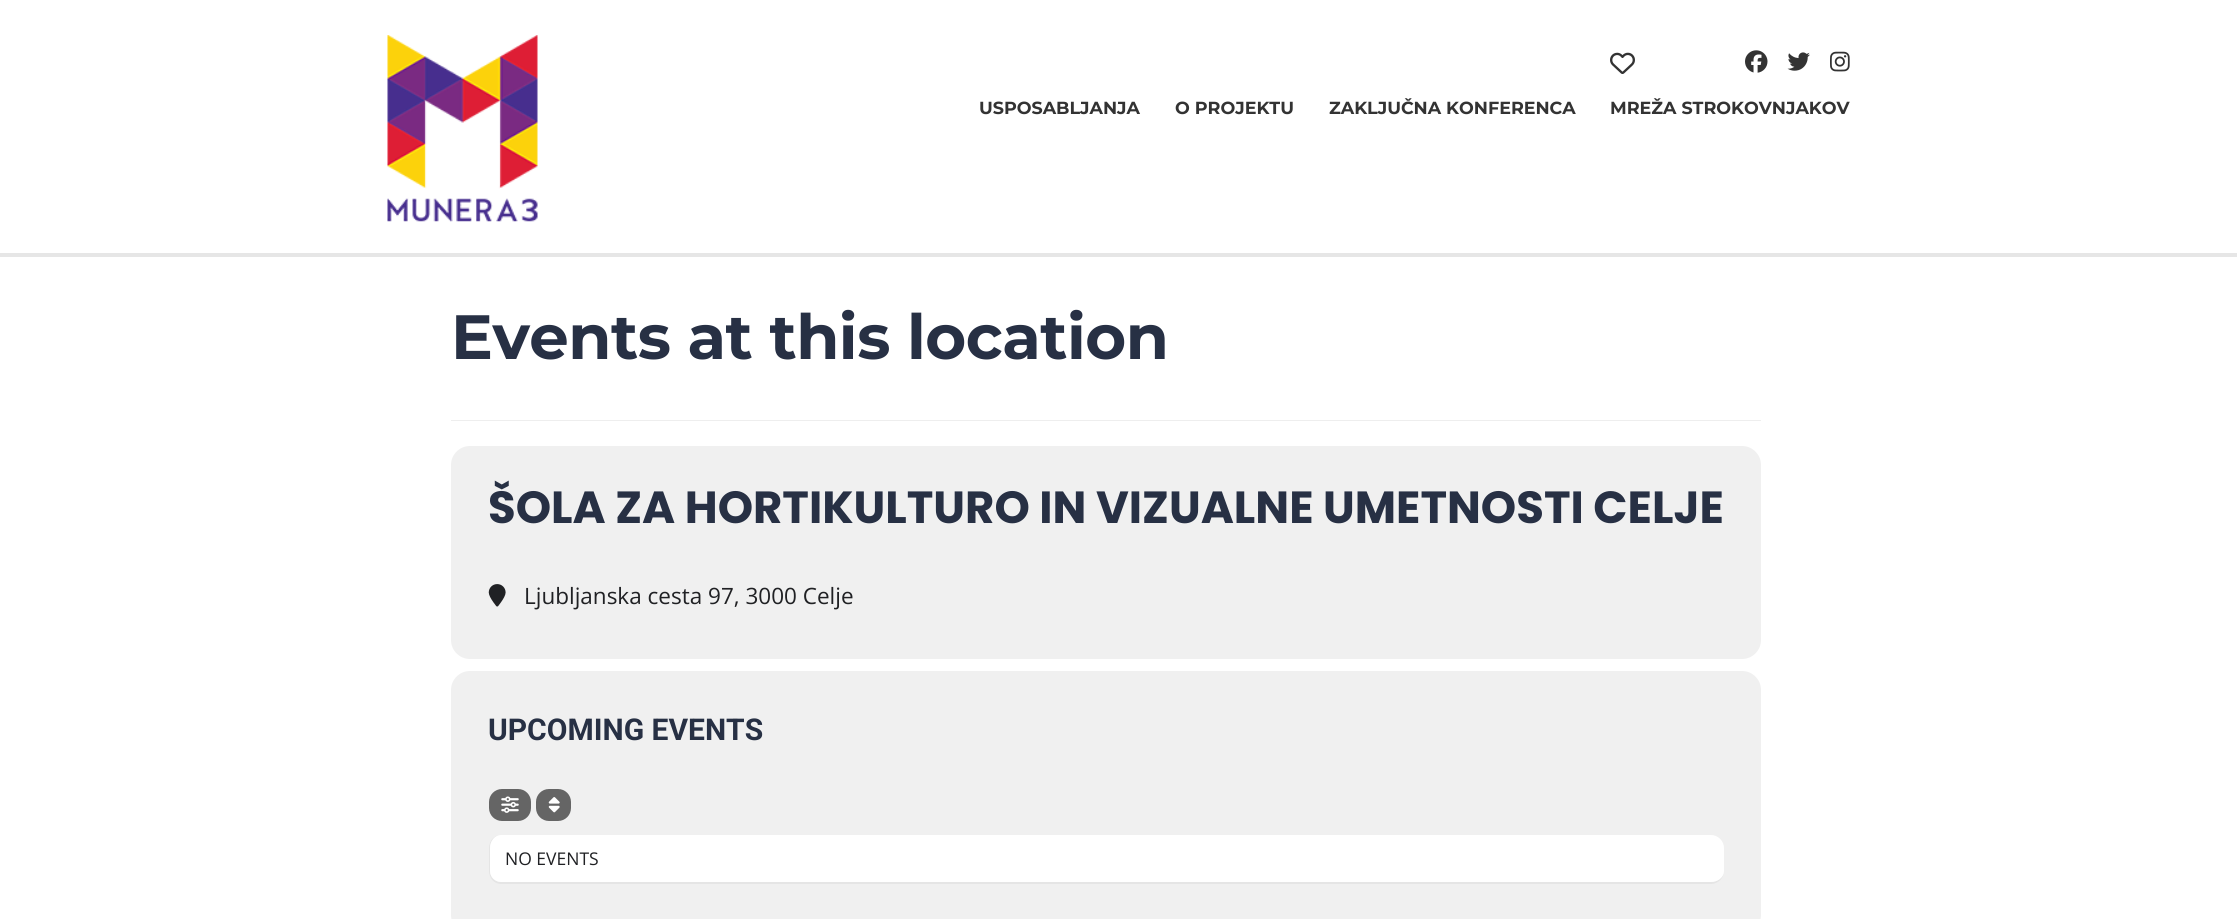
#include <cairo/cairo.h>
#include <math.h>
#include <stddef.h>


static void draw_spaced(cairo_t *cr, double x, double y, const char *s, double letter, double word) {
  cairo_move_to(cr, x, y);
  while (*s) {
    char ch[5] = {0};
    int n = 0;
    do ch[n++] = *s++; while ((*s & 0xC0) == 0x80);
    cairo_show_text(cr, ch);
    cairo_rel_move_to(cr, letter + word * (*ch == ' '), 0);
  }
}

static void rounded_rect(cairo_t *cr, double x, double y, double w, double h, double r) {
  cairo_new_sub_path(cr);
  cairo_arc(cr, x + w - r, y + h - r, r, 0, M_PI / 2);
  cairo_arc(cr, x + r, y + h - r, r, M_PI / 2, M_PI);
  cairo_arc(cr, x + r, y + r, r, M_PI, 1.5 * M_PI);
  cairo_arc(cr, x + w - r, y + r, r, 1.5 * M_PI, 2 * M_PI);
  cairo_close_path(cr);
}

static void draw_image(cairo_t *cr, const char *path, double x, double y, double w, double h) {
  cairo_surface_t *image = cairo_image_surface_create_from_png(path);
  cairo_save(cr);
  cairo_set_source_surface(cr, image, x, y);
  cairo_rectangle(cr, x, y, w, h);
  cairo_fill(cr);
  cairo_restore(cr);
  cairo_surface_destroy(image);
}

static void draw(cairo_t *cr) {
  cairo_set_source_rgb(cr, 1, 1, 1);
  cairo_paint(cr);
  draw_image(cr, "images/1.png", 387, 35, 151, 187);
  draw_image(cr, "images/2.png", 1610, 52, 25, 22);
  draw_image(cr, "images/3.png", 1745, 50, 23, 23);
  draw_image(cr, "images/4.png", 1787, 52, 23, 19);
  draw_image(cr, "images/5.png", 1830, 51, 20, 21);
  cairo_set_source_rgb(cr, 230 / 255.0, 230 / 255.0, 230 / 255.0);
  cairo_rectangle(cr, 0, 253, 2237, 4);
  cairo_fill(cr);
  cairo_set_source_rgb(cr, 238 / 255.0, 238 / 255.0, 238 / 255.0);
  cairo_rectangle(cr, 451, 420, 1310, 1);
  cairo_fill(cr);
  cairo_set_source_rgb(cr, 240 / 255.0, 240 / 255.0, 240 / 255.0);
  rounded_rect(cr, 451, 446, 1310, 213, 19);
  cairo_fill(cr);
  draw_image(cr, "images/6.png", 488, 584, 18, 23);
  rounded_rect(cr, 451, 671, 1310, 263, 19);
  cairo_fill(cr);
  cairo_set_source_rgb(cr, 101 / 255.0, 101 / 255.0, 101 / 255.0);
  rounded_rect(cr, 489, 789, 42, 32, 13);
  cairo_fill(cr);
  draw_image(cr, "images/7.png", 501, 796, 18, 17);
  rounded_rect(cr, 536, 789, 35, 32, 13);
  cairo_fill(cr);
  draw_image(cr, "images/8.png", 548, 797, 12, 16);
  cairo_set_source_rgb(cr, 229 / 255.0, 229 / 255.0, 229 / 255.0);
  cairo_set_fill_rule(cr, CAIRO_FILL_RULE_EVEN_ODD);
  cairo_new_path(cr);
  cairo_move_to(cr, 501, 835);
  cairo_line_to(cr, 1711, 835);
  cairo_curve_to(cr, 1718, 835, 1724, 841, 1724, 848);
  cairo_line_to(cr, 1724, 871);
  cairo_curve_to(cr, 1724, 878, 1718, 884, 1711, 884);
  cairo_line_to(cr, 501, 884);
  cairo_curve_to(cr, 494, 884, 489, 878, 489, 871);
  cairo_line_to(cr, 489, 848);
  cairo_curve_to(cr, 489, 841, 494, 835, 501, 835);
  cairo_close_path(cr);
  cairo_move_to(cr, 501, 835);
  cairo_line_to(cr, 1711, 835);
  cairo_curve_to(cr, 1718, 835, 1724, 841, 1724, 848);
  cairo_line_to(cr, 1724, 871);
  cairo_curve_to(cr, 1724, 877, 1718, 882, 1711, 882);
  cairo_line_to(cr, 501, 882);
  cairo_curve_to(cr, 495, 882, 490, 877, 490, 871);
  cairo_line_to(cr, 490, 848);
  cairo_curve_to(cr, 490, 841, 495, 835, 501, 835);
  cairo_close_path(cr);
  cairo_fill(cr);
  cairo_set_source_rgb(cr, 1, 1, 1);
  cairo_set_fill_rule(cr, CAIRO_FILL_RULE_WINDING);
  cairo_new_path(cr);
  cairo_move_to(cr, 501, 835);
  cairo_curve_to(cr, 495, 835, 490, 841, 490, 848);
  cairo_line_to(cr, 490, 871);
  cairo_curve_to(cr, 490, 877, 495, 882, 501, 882);
  cairo_line_to(cr, 1711, 882);
  cairo_curve_to(cr, 1718, 882, 1724, 877, 1724, 871);
  cairo_line_to(cr, 1724, 848);
  cairo_curve_to(cr, 1724, 841, 1718, 835, 1711, 835);
  cairo_close_path(cr);
  cairo_fill(cr);
  cairo_select_font_face(cr, "Montserrat", CAIRO_FONT_SLANT_NORMAL, CAIRO_FONT_WEIGHT_BOLD);
  cairo_set_font_size(cr, 17.5);
  cairo_set_source_rgb(cr, 51 / 255.0, 51 / 255.0, 51 / 255.0);
  cairo_move_to(cr, 979, 114);
  cairo_show_text(cr, "USPOSABLJANJA");
  cairo_move_to(cr, 1175, 114);
  cairo_show_text(cr, "O PROJEKTU");
  cairo_move_to(cr, 1329, 114);
  cairo_show_text(cr, "ZAKLJUČNA KONFERENCA");
  cairo_move_to(cr, 1610, 114);
  cairo_show_text(cr, "MREŽA STROKOVNJAKOV");
  cairo_set_font_size(cr, 62.5);
  cairo_set_source_rgb(cr, 39 / 255.0, 48 / 255.0, 68 / 255.0);
  draw_spaced(cr, 451, 359, "Events at this location", -0.5, 0);
  cairo_select_font_face(cr, "Poppins", CAIRO_FONT_SLANT_NORMAL, CAIRO_FONT_WEIGHT_BOLD);
  cairo_set_font_size(cr, 45);
  cairo_move_to(cr, 488, 523);
  cairo_show_text(cr, "ŠOLA ZA HORTIKULTURO IN VIZUALNE UMETNOSTI CELJE");
  cairo_select_font_face(cr, "Open Sans", CAIRO_FONT_SLANT_NORMAL, CAIRO_FONT_WEIGHT_NORMAL);
  cairo_set_font_size(cr, 22.5);
  cairo_set_source_rgb(cr, 32 / 255.0, 33 / 255.0, 36 / 255.0);
  cairo_move_to(cr, 524, 604);
  cairo_show_text(cr, "Ljubljanska cesta 97, 3000 Celje");
  cairo_select_font_face(cr, "Roboto", CAIRO_FONT_SLANT_NORMAL, CAIRO_FONT_WEIGHT_BOLD);
  cairo_set_font_size(cr, 30);
  cairo_set_source_rgb(cr, 39 / 255.0, 48 / 255.0, 68 / 255.0);
  cairo_move_to(cr, 488, 740);
  cairo_show_text(cr, "UPCOMING EVENTS");
  cairo_select_font_face(cr, "Open Sans", CAIRO_FONT_SLANT_NORMAL, CAIRO_FONT_WEIGHT_NORMAL);
  cairo_set_font_size(cr, 17.5);
  cairo_set_source_rgb(cr, 32 / 255.0, 33 / 255.0, 36 / 255.0);
  cairo_move_to(cr, 505, 865);
  cairo_show_text(cr, "NO EVENTS");
}

int main(void) {
  cairo_surface_t *surface = cairo_image_surface_create(CAIRO_FORMAT_RGB24, 2237, 919);
  cairo_t *cr = cairo_create(surface);
  cairo_font_options_t *options = cairo_font_options_create();
  cairo_font_options_set_hint_metrics(options, CAIRO_HINT_METRICS_OFF);
  cairo_font_options_set_hint_style(options, CAIRO_HINT_STYLE_NONE);
  cairo_set_font_options(cr, options);
  cairo_set_miter_limit(cr, 4);
  draw(cr);
  cairo_surface_write_to_png(surface, "out.png");
  cairo_font_options_destroy(options);
  cairo_destroy(cr);
  cairo_surface_destroy(surface);
  return 0;
}
